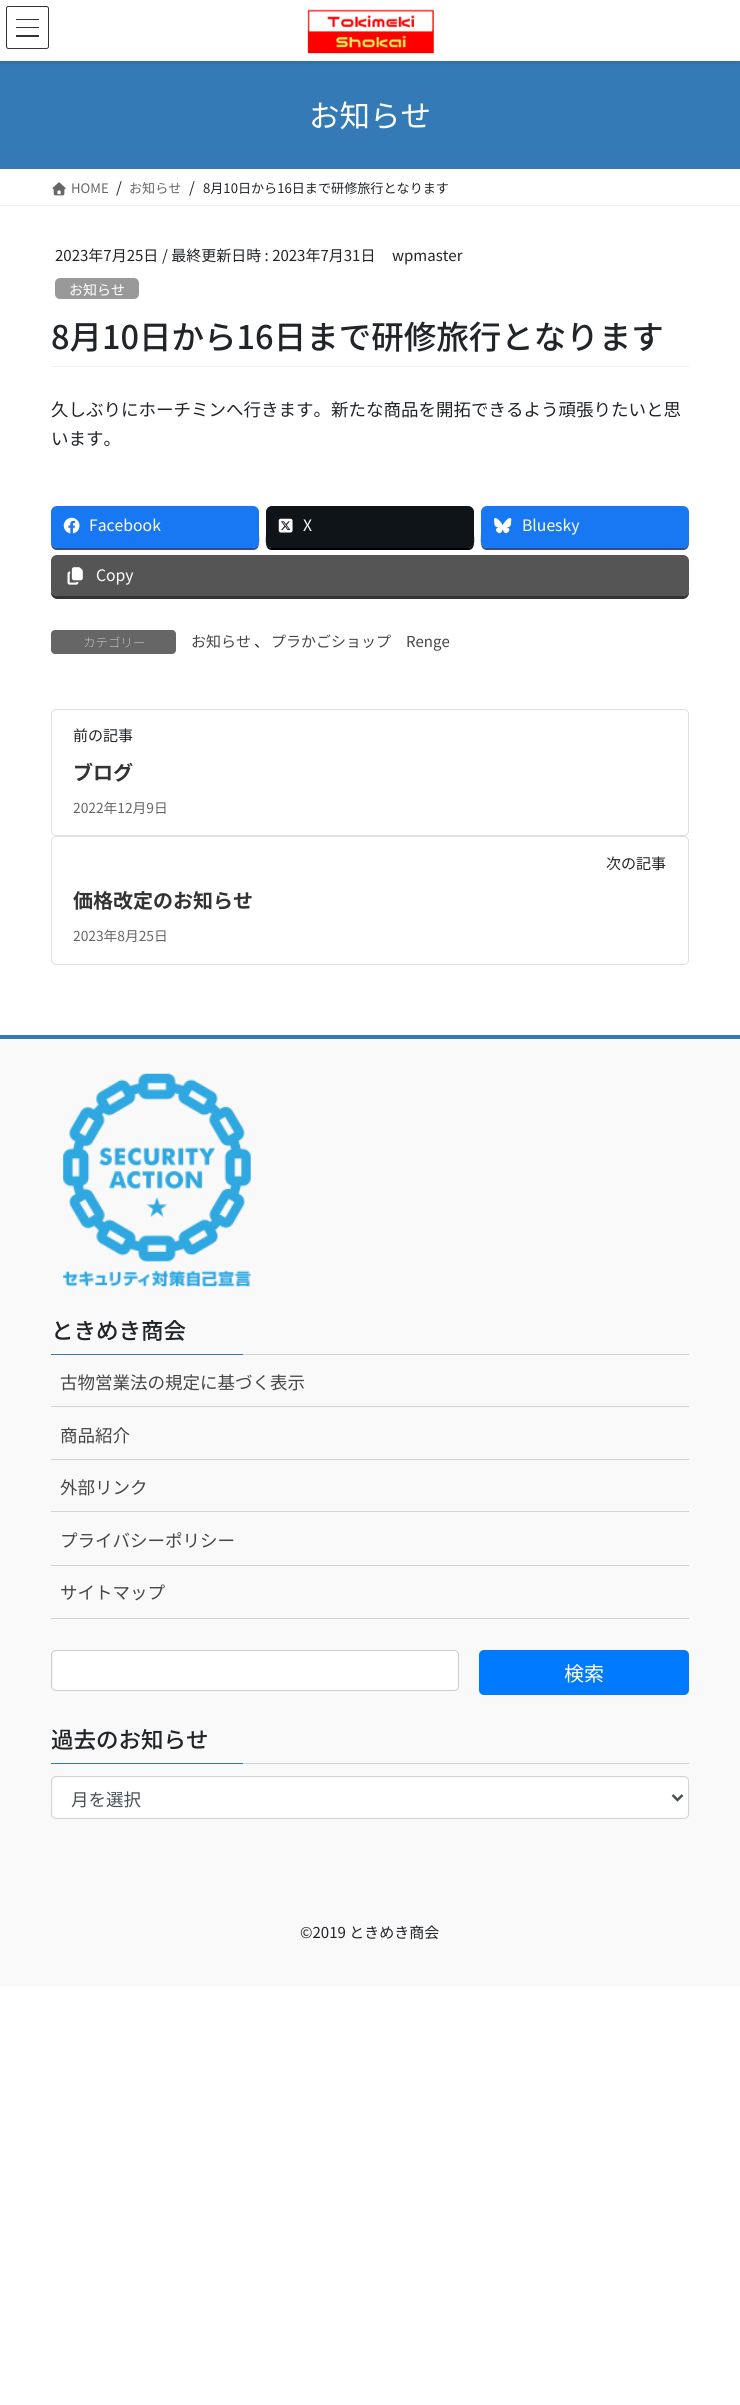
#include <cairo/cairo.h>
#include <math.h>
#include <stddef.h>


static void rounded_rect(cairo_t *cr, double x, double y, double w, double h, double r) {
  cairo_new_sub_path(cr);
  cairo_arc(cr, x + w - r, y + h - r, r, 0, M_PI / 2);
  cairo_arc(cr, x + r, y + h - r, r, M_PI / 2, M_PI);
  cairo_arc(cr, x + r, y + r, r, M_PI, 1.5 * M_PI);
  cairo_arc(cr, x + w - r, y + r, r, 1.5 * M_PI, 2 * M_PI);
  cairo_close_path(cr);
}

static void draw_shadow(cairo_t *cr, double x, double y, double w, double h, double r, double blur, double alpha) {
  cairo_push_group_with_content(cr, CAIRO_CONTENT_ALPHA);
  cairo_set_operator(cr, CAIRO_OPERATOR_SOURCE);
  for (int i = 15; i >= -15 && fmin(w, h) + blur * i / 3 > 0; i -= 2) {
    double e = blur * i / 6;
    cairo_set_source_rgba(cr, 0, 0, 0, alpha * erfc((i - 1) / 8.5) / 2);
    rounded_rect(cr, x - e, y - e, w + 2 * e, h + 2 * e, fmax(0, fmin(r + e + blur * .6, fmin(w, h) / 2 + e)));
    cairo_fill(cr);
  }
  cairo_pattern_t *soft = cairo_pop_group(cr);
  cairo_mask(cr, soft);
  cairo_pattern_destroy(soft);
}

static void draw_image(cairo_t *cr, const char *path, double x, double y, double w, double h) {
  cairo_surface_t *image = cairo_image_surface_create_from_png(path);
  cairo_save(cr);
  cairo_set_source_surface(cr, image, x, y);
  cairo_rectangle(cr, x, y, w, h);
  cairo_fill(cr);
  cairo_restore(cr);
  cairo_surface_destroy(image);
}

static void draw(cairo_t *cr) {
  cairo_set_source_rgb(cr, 1, 1, 1);
  cairo_paint(cr);
  cairo_set_source_rgb(cr, 51 / 255.0, 122 / 255.0, 183 / 255.0);
  cairo_rectangle(cr, 0, 61, 740, 108);
  cairo_fill(cr);
  cairo_save(cr);
  cairo_rectangle(cr, 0, 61, 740, 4);
  cairo_clip(cr);
  cairo_set_source_rgb(cr, 0, 0, 0);
  draw_shadow(cr, 0, 1, 740, 62, 0, 2, 0.1);
  cairo_restore(cr);
  draw_image(cr, "images/1.png", 307, 9, 127, 45);
  cairo_set_source_rgb(cr, 51 / 255.0, 51 / 255.0, 51 / 255.0);
  cairo_rectangle(cr, 16, 19, 23, 1);
  cairo_fill(cr);
  cairo_rectangle(cr, 16, 27, 23, 1);
  cairo_fill(cr);
  cairo_rectangle(cr, 16, 35, 23, 2);
  cairo_fill(cr);
  rounded_rect(cr, 6.5, 6.5, 42, 42, 2);
  cairo_set_line_width(cr, 1);
  cairo_stroke(cr);
  cairo_set_source_rgb(cr, 242 / 255.0, 242 / 255.0, 242 / 255.0);
  cairo_rectangle(cr, 0, 205, 740, 1);
  cairo_fill(cr);
  draw_image(cr, "images/2.png", 52, 182, 14, 14);
  cairo_rectangle(cr, 51, 366, 638, 1);
  cairo_fill(cr);
  cairo_set_source_rgb(cr, 153 / 255.0, 153 / 255.0, 153 / 255.0);
  rounded_rect(cr, 55, 278, 84, 21, 5);
  cairo_fill(cr);
  cairo_save(cr);
  cairo_rectangle(cr, 51, 506, 638, 94);
  cairo_clip(cr);
  cairo_set_source_rgb(cr, 52 / 255.0, 78 / 255.0, 132 / 255.0);
  cairo_new_path(cr);
  cairo_move_to(cr, 51, 513);
  cairo_line_to(cr, 51, 534);
  cairo_curve_to(cr, 51, 539, 49, 550, 57, 550);
  cairo_line_to(cr, 253, 550);
  cairo_curve_to(cr, 261, 550, 259, 539, 259, 534);
  cairo_line_to(cr, 259, 513);
  cairo_line_to(cr, 259, 541);
  cairo_curve_to(cr, 259, 545, 256, 548, 252, 548);
  cairo_line_to(cr, 58, 548);
  cairo_curve_to(cr, 54, 548, 51, 545, 51, 541);
  cairo_close_path(cr);
  cairo_fill(cr);
  cairo_restore(cr);
  cairo_set_source_rgb(cr, 24 / 255.0, 119 / 255.0, 242 / 255.0);
  rounded_rect(cr, 51, 506, 208, 42, 6);
  cairo_fill(cr);
  draw_image(cr, "images/3.png", 63, 517, 17, 17);
  cairo_set_source_rgb(cr, 0, 0, 0);
  cairo_new_path(cr);
  cairo_move_to(cr, 266, 513);
  cairo_line_to(cr, 266, 534);
  cairo_curve_to(cr, 266, 539, 264, 550, 272, 550);
  cairo_line_to(cr, 468, 550);
  cairo_curve_to(cr, 476, 550, 474, 539, 474, 534);
  cairo_line_to(cr, 474, 513);
  cairo_line_to(cr, 474, 541);
  cairo_curve_to(cr, 474, 545, 471, 548, 468, 548);
  cairo_line_to(cr, 272, 548);
  cairo_curve_to(cr, 269, 548, 266, 545, 266, 541);
  cairo_close_path(cr);
  cairo_fill(cr);
  cairo_set_source_rgb(cr, 15 / 255.0, 20 / 255.0, 25 / 255.0);
  rounded_rect(cr, 266, 506, 208, 42, 6);
  cairo_fill(cr);
  draw_image(cr, "images/4.png", 278, 518, 15, 15);
  cairo_save(cr);
  cairo_rectangle(cr, 51, 506, 638, 94);
  cairo_clip(cr);
  cairo_set_source_rgb(cr, 52 / 255.0, 78 / 255.0, 132 / 255.0);
  cairo_new_path(cr);
  cairo_move_to(cr, 481, 513);
  cairo_line_to(cr, 481, 534);
  cairo_curve_to(cr, 481, 539, 479, 550, 487, 550);
  cairo_line_to(cr, 683, 550);
  cairo_curve_to(cr, 691, 550, 689, 539, 689, 534);
  cairo_line_to(cr, 689, 513);
  cairo_line_to(cr, 689, 541);
  cairo_curve_to(cr, 689, 545, 686, 548, 682, 548);
  cairo_line_to(cr, 488, 548);
  cairo_curve_to(cr, 484, 548, 481, 545, 481, 541);
  cairo_close_path(cr);
  cairo_fill(cr);
  cairo_restore(cr);
  cairo_set_source_rgb(cr, 24 / 255.0, 119 / 255.0, 242 / 255.0);
  rounded_rect(cr, 481, 506, 208, 42, 6);
  cairo_fill(cr);
  draw_image(cr, "images/5.png", 494, 518, 18, 16);
  cairo_set_source_rgb(cr, 51 / 255.0, 51 / 255.0, 51 / 255.0);
  cairo_new_path(cr);
  cairo_move_to(cr, 51, 562);
  cairo_line_to(cr, 51, 593);
  cairo_curve_to(cr, 51, 596, 54, 599, 57, 599);
  cairo_line_to(cr, 683, 599);
  cairo_curve_to(cr, 686, 599, 689, 596, 689, 593);
  cairo_line_to(cr, 689, 562);
  cairo_line_to(cr, 689, 590);
  cairo_curve_to(cr, 689, 593, 686, 596, 682, 596);
  cairo_line_to(cr, 58, 596);
  cairo_curve_to(cr, 54, 596, 51, 593, 51, 590);
  cairo_close_path(cr);
  cairo_fill(cr);
  cairo_set_source_rgb(cr, 85 / 255.0, 85 / 255.0, 85 / 255.0);
  rounded_rect(cr, 51, 555, 638, 41, 6);
  cairo_fill(cr);
  draw_image(cr, "images/6.png", 67, 567, 16, 18);
  cairo_set_source_rgb(cr, 102 / 255.0, 102 / 255.0, 102 / 255.0);
  rounded_rect(cr, 51, 630, 125, 24, 4);
  cairo_fill(cr);
  rounded_rect(cr, 51.5, 709.5, 637, 126, 4.5);
  cairo_set_source_rgb(cr, 223 / 255.0, 223 / 255.0, 223 / 255.0);
  cairo_stroke(cr);
  rounded_rect(cr, 51.5, 836.5, 637, 128, 4.5);
  cairo_stroke(cr);
  cairo_set_source_rgb(cr, 249 / 255.0, 249 / 255.0, 249 / 255.0);
  cairo_rectangle(cr, 0, 1039, 740, 947);
  cairo_fill(cr);
  cairo_set_source_rgb(cr, 51 / 255.0, 122 / 255.0, 183 / 255.0);
  cairo_rectangle(cr, 0, 1035, 740, 4);
  cairo_fill(cr);
  draw_image(cr, "images/7.png", 63, 1073, 188, 214);
  cairo_set_source_rgb(cr, 212 / 255.0, 212 / 255.0, 212 / 255.0);
  cairo_rectangle(cr, 243, 1354, 446, 1);
  cairo_fill(cr);
  cairo_set_source_rgb(cr, 51 / 255.0, 122 / 255.0, 183 / 255.0);
  cairo_rectangle(cr, 51, 1354, 192, 1);
  cairo_fill(cr);
  cairo_set_source_rgb(cr, 212 / 255.0, 212 / 255.0, 212 / 255.0);
  cairo_rectangle(cr, 51, 1406, 638, 1);
  cairo_fill(cr);
  cairo_rectangle(cr, 51, 1459, 638, 1);
  cairo_fill(cr);
  cairo_rectangle(cr, 51, 1511, 638, 1);
  cairo_fill(cr);
  cairo_rectangle(cr, 51, 1565, 638, 1);
  cairo_fill(cr);
  cairo_rectangle(cr, 51, 1618, 638, 1);
  cairo_fill(cr);
  cairo_set_source_rgb(cr, 1, 1, 1);
  rounded_rect(cr, 53, 1651, 405, 39, 4);
  cairo_fill(cr);
  rounded_rect(cr, 51.5, 1650.5, 407, 40, 4.5);
  cairo_set_source_rgb(cr, 204 / 255.0, 204 / 255.0, 204 / 255.0);
  cairo_stroke(cr);
  cairo_set_source_rgb(cr, 0, 123 / 255.0, 1);
  rounded_rect(cr, 479, 1650, 210, 45, 5);
  cairo_fill(cr);
  cairo_set_source_rgb(cr, 212 / 255.0, 212 / 255.0, 212 / 255.0);
  cairo_rectangle(cr, 243, 1763, 446, 1);
  cairo_fill(cr);
  cairo_set_source_rgb(cr, 51 / 255.0, 122 / 255.0, 183 / 255.0);
  cairo_rectangle(cr, 51, 1763, 192, 1);
  cairo_fill(cr);
  cairo_set_source_rgb(cr, 1, 1, 1);
  rounded_rect(cr, 53, 1778, 635, 40, 3);
  cairo_fill(cr);
  rounded_rect(cr, 51.5, 1776.5, 637, 42, 4.5);
  cairo_set_source_rgb(cr, 206 / 255.0, 212 / 255.0, 218 / 255.0);
  cairo_stroke(cr);
  cairo_new_path(cr);
  cairo_move_to(cr, 672.5, 1795);
  cairo_line_to(cr, 677.5, 1800);
  cairo_line_to(cr, 682.5, 1795);
  cairo_set_source_rgb(cr, 73 / 255.0, 80 / 255.0, 87 / 255.0);
  cairo_set_line_width(cr, 2.5);
  cairo_stroke(cr);
  cairo_select_font_face(cr, "Noto Sans JP", CAIRO_FONT_SLANT_NORMAL, CAIRO_FONT_WEIGHT_NORMAL);
  cairo_set_font_size(cr, 30.5);
  cairo_set_source_rgb(cr, 1, 1, 1);
  cairo_move_to(cr, 309, 127);
  cairo_show_text(cr, "お知らせ");
  cairo_set_font_size(cr, 13.1);
  cairo_set_source_rgb(cr, 102 / 255.0, 102 / 255.0, 102 / 255.0);
  cairo_move_to(cr, 71, 193);
  cairo_show_text(cr, "HOME");
  cairo_set_font_size(cr, 15);
  cairo_set_source_rgb(cr, 33 / 255.0, 37 / 255.0, 41 / 255.0);
  cairo_move_to(cr, 116, 193);
  cairo_show_text(cr, "/");
  cairo_set_font_size(cr, 13.1);
  cairo_set_source_rgb(cr, 102 / 255.0, 102 / 255.0, 102 / 255.0);
  cairo_move_to(cr, 129, 193);
  cairo_show_text(cr, "お知らせ");
  cairo_set_font_size(cr, 15);
  cairo_set_source_rgb(cr, 33 / 255.0, 37 / 255.0, 41 / 255.0);
  cairo_move_to(cr, 189, 193);
  cairo_show_text(cr, "/");
  cairo_set_font_size(cr, 13.1);
  cairo_move_to(cr, 203, 193);
  cairo_show_text(cr, "8月10日から16日まで研修旅行となります");
  cairo_set_font_size(cr, 15);
  cairo_move_to(cr, 55, 261);
  cairo_show_text(cr, "2023年7月25日");
  cairo_move_to(cr, 162, 261);
  cairo_show_text(cr, "/ 最終更新日時 : 2023年7月31日");
  cairo_move_to(cr, 392, 261);
  cairo_show_text(cr, "wpmaster");
  cairo_set_font_size(cr, 14);
  cairo_set_source_rgb(cr, 1, 1, 1);
  cairo_move_to(cr, 69, 295);
  cairo_show_text(cr, "お知らせ");
  cairo_select_font_face(cr, "Noto Sans JP Medium", CAIRO_FONT_SLANT_NORMAL, CAIRO_FONT_WEIGHT_NORMAL);
  cairo_set_font_size(cr, 32.5);
  cairo_set_source_rgb(cr, 33 / 255.0, 37 / 255.0, 41 / 255.0);
  cairo_move_to(cr, 51, 349);
  cairo_show_text(cr, "8月10日から16日まで研修旅行となります");
  cairo_select_font_face(cr, "Noto Sans JP", CAIRO_FONT_SLANT_NORMAL, CAIRO_FONT_WEIGHT_NORMAL);
  cairo_set_font_size(cr, 17.5);
  cairo_move_to(cr, 51, 416);
  cairo_show_text(cr, "久しぶりにホーチミンへ行きます。新たな商品を開拓できるよう頑張りたいと思");
  cairo_move_to(cr, 51, 445);
  cairo_show_text(cr, "います。");
  cairo_set_font_size(cr, 15.75);
  cairo_set_source_rgb(cr, 1, 1, 1);
  cairo_move_to(cr, 89, 531);
  cairo_show_text(cr, "Facebook");
  cairo_move_to(cr, 303, 531);
  cairo_show_text(cr, "X");
  cairo_move_to(cr, 522, 531);
  cairo_show_text(cr, "Bluesky");
  cairo_move_to(cr, 96, 581);
  cairo_show_text(cr, "Copy");
  cairo_select_font_face(cr, "Noto Sans JP Thin", CAIRO_FONT_SLANT_NORMAL, CAIRO_FONT_WEIGHT_NORMAL);
  cairo_set_font_size(cr, 12.5);
  cairo_move_to(cr, 83, 647);
  cairo_show_text(cr, "カテゴリー");
  cairo_select_font_face(cr, "Noto Sans JP", CAIRO_FONT_SLANT_NORMAL, CAIRO_FONT_WEIGHT_NORMAL);
  cairo_set_font_size(cr, 15);
  cairo_set_source_rgb(cr, 70 / 255.0, 70 / 255.0, 70 / 255.0);
  cairo_move_to(cr, 191, 647);
  cairo_show_text(cr, "お知らせ");
  cairo_set_source_rgb(cr, 33 / 255.0, 37 / 255.0, 41 / 255.0);
  cairo_move_to(cr, 254, 647);
  cairo_show_text(cr, "、");
  cairo_set_source_rgb(cr, 70 / 255.0, 70 / 255.0, 70 / 255.0);
  cairo_move_to(cr, 271, 647);
  cairo_show_text(cr, "プラかごショップ　Renge");
  cairo_set_source_rgb(cr, 33 / 255.0, 37 / 255.0, 41 / 255.0);
  cairo_move_to(cr, 73, 741);
  cairo_show_text(cr, "前の記事");
  cairo_select_font_face(cr, "Noto Sans JP", CAIRO_FONT_SLANT_NORMAL, CAIRO_FONT_WEIGHT_BOLD);
  cairo_set_font_size(cr, 20);
  cairo_set_source_rgb(cr, 51 / 255.0, 51 / 255.0, 51 / 255.0);
  cairo_move_to(cr, 73, 780);
  cairo_show_text(cr, "ブログ");
  cairo_select_font_face(cr, "Noto Sans JP", CAIRO_FONT_SLANT_NORMAL, CAIRO_FONT_WEIGHT_NORMAL);
  cairo_set_font_size(cr, 13.75);
  cairo_set_source_rgb(cr, 102 / 255.0, 102 / 255.0, 102 / 255.0);
  cairo_move_to(cr, 73, 813);
  cairo_show_text(cr, "2022年12月9日");
  cairo_set_font_size(cr, 15);
  cairo_set_source_rgb(cr, 33 / 255.0, 37 / 255.0, 41 / 255.0);
  cairo_move_to(cr, 606, 869);
  cairo_show_text(cr, "次の記事");
  cairo_select_font_face(cr, "Noto Sans JP", CAIRO_FONT_SLANT_NORMAL, CAIRO_FONT_WEIGHT_BOLD);
  cairo_set_font_size(cr, 20);
  cairo_set_source_rgb(cr, 51 / 255.0, 51 / 255.0, 51 / 255.0);
  cairo_move_to(cr, 73, 908);
  cairo_show_text(cr, "価格改定のお知らせ");
  cairo_select_font_face(cr, "Noto Sans JP", CAIRO_FONT_SLANT_NORMAL, CAIRO_FONT_WEIGHT_NORMAL);
  cairo_set_font_size(cr, 13.75);
  cairo_set_source_rgb(cr, 102 / 255.0, 102 / 255.0, 102 / 255.0);
  cairo_move_to(cr, 73, 941);
  cairo_show_text(cr, "2023年8月25日");
  cairo_select_font_face(cr, "Noto Sans JP Medium", CAIRO_FONT_SLANT_NORMAL, CAIRO_FONT_WEIGHT_NORMAL);
  cairo_set_font_size(cr, 22.5);
  cairo_set_source_rgb(cr, 33 / 255.0, 37 / 255.0, 41 / 255.0);
  cairo_move_to(cr, 51, 1339);
  cairo_show_text(cr, "ときめき商会");
  cairo_select_font_face(cr, "Noto Sans JP", CAIRO_FONT_SLANT_NORMAL, CAIRO_FONT_WEIGHT_NORMAL);
  cairo_set_font_size(cr, 17.5);
  cairo_set_source_rgb(cr, 70 / 255.0, 70 / 255.0, 70 / 255.0);
  cairo_move_to(cr, 60, 1389);
  cairo_show_text(cr, "古物営業法の規定に基づく表示");
  cairo_move_to(cr, 60, 1442);
  cairo_show_text(cr, "商品紹介");
  cairo_move_to(cr, 60, 1494);
  cairo_show_text(cr, "外部リンク");
  cairo_move_to(cr, 60, 1547);
  cairo_show_text(cr, "プライバシーポリシー");
  cairo_move_to(cr, 60, 1599);
  cairo_show_text(cr, "サイトマップ");
  cairo_set_font_size(cr, 20);
  cairo_set_source_rgb(cr, 1, 1, 1);
  cairo_move_to(cr, 564, 1681);
  cairo_show_text(cr, "検索");
  cairo_select_font_face(cr, "Noto Sans JP Medium", CAIRO_FONT_SLANT_NORMAL, CAIRO_FONT_WEIGHT_NORMAL);
  cairo_set_font_size(cr, 22.5);
  cairo_set_source_rgb(cr, 33 / 255.0, 37 / 255.0, 41 / 255.0);
  cairo_move_to(cr, 51, 1748);
  cairo_show_text(cr, "過去のお知らせ");
  cairo_select_font_face(cr, "Noto Sans JP", CAIRO_FONT_SLANT_NORMAL, CAIRO_FONT_WEIGHT_NORMAL);
  cairo_set_font_size(cr, 17.5);
  cairo_set_source_rgb(cr, 73 / 255.0, 80 / 255.0, 87 / 255.0);
  cairo_move_to(cr, 71, 1806);
  cairo_show_text(cr, "月を選択");
  cairo_set_font_size(cr, 15);
  cairo_set_source_rgb(cr, 33 / 255.0, 37 / 255.0, 41 / 255.0);
  cairo_move_to(cr, 300, 1938);
  cairo_show_text(cr, "©2019 ときめき商会");
}

int main(void) {
  cairo_surface_t *surface = cairo_image_surface_create(CAIRO_FORMAT_RGB24, 740, 2405);
  cairo_t *cr = cairo_create(surface);
  cairo_font_options_t *options = cairo_font_options_create();
  cairo_font_options_set_hint_metrics(options, CAIRO_HINT_METRICS_OFF);
  cairo_font_options_set_hint_style(options, CAIRO_HINT_STYLE_NONE);
  cairo_set_font_options(cr, options);
  cairo_set_miter_limit(cr, 4);
  draw(cr);
  cairo_surface_write_to_png(surface, "out.png");
  cairo_font_options_destroy(options);
  cairo_destroy(cr);
  cairo_surface_destroy(surface);
  return 0;
}
